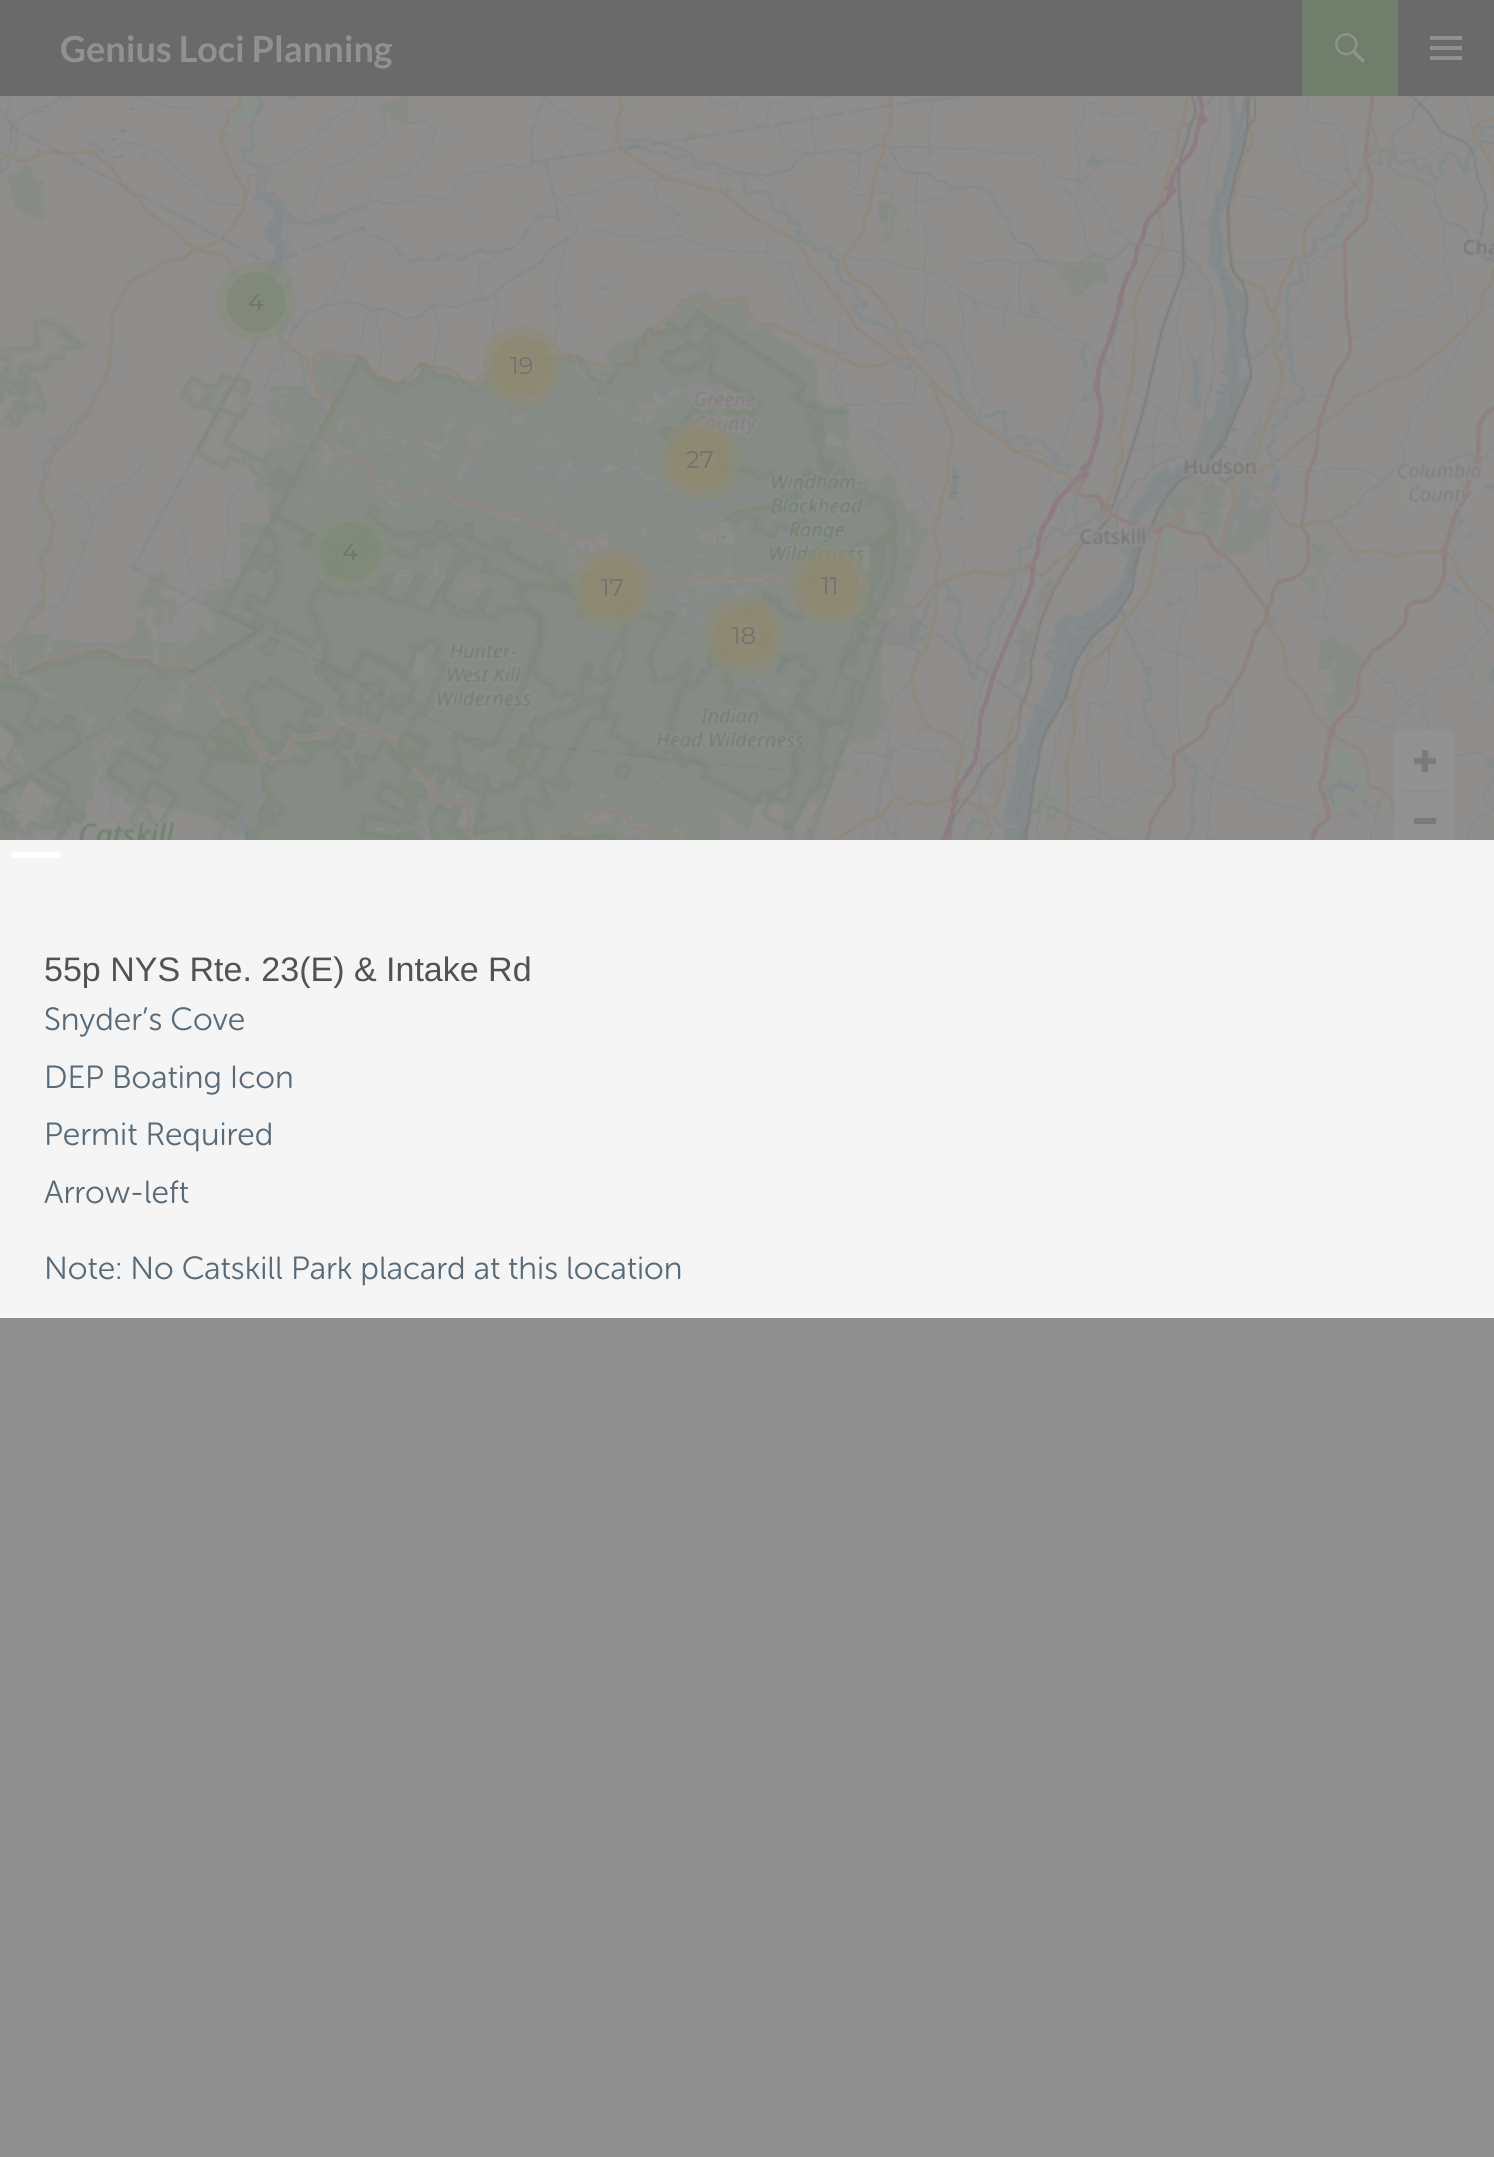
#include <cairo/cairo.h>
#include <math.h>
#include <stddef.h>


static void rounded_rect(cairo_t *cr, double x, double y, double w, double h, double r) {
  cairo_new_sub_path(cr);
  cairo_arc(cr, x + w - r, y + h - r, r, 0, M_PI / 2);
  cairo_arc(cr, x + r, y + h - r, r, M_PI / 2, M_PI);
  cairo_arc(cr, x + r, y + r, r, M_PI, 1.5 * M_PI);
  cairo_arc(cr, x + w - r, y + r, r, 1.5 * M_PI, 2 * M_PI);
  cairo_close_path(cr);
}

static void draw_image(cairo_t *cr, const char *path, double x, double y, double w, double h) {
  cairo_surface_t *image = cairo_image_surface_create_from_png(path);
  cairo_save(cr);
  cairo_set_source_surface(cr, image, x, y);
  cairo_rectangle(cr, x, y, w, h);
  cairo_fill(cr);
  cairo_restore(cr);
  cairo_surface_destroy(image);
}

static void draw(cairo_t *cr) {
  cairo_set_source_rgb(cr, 143 / 255.0, 143 / 255.0, 143 / 255.0);
  cairo_paint(cr);
  cairo_set_source_rgb(cr, 106 / 255.0, 106 / 255.0, 106 / 255.0);
  cairo_rectangle(cr, 0, 0, 1494, 96);
  cairo_fill(cr);
  cairo_set_source_rgb(cr, 112 / 255.0, 127 / 255.0, 108 / 255.0);
  cairo_rectangle(cr, 1302, 0, 96, 96);
  cairo_fill(cr);
  draw_image(cr, "images/1.png", 1335, 33, 30, 30);
  draw_image(cr, "images/2.png", 1430, 36, 32, 24);
  draw_image(cr, "images/3.png", 0, 96, 142, 290);
  draw_image(cr, "images/4.png", 142, 96, 512, 290);
  draw_image(cr, "images/5.png", 654, 96, 512, 290);
  draw_image(cr, "images/6.png", 1166, 96, 328, 290);
  draw_image(cr, "images/7.png", 0, 386, 142, 454);
  draw_image(cr, "images/8.png", 142, 386, 512, 454);
  draw_image(cr, "images/9.png", 654, 386, 512, 454);
  draw_image(cr, "images/10.png", 1166, 386, 328, 454);
  cairo_set_source_rgba(cr, 133 / 255.0, 140 / 255.0, 127 / 255.0, 0.6);
  cairo_arc(cr, 256, 302, 40, 0, 2 * M_PI);
  cairo_fill(cr);
  cairo_set_source_rgba(cr, 123 / 255.0, 137 / 255.0, 115 / 255.0, 0.6);
  cairo_arc(cr, 256, 302, 30, 0, 2 * M_PI);
  cairo_fill(cr);
  cairo_set_source_rgba(cr, 142 / 255.0, 138 / 255.0, 119 / 255.0, 0.6);
  cairo_arc(cr, 522, 366, 40, 0, 2 * M_PI);
  cairo_fill(cr);
  cairo_set_source_rgba(cr, 142 / 255.0, 135 / 255.0, 108 / 255.0, 0.6);
  cairo_arc(cr, 522, 366, 30, 0, 2 * M_PI);
  cairo_fill(cr);
  cairo_set_source_rgba(cr, 142 / 255.0, 138 / 255.0, 119 / 255.0, 0.6);
  cairo_arc(cr, 700, 460, 40, 0, 2 * M_PI);
  cairo_fill(cr);
  cairo_set_source_rgba(cr, 142 / 255.0, 135 / 255.0, 108 / 255.0, 0.6);
  cairo_arc(cr, 700, 460, 30, 0, 2 * M_PI);
  cairo_fill(cr);
  cairo_set_source_rgba(cr, 133 / 255.0, 140 / 255.0, 127 / 255.0, 0.6);
  cairo_arc(cr, 350, 552, 40, 0, 2 * M_PI);
  cairo_fill(cr);
  cairo_set_source_rgba(cr, 123 / 255.0, 137 / 255.0, 115 / 255.0, 0.6);
  cairo_arc(cr, 350, 552, 30, 0, 2 * M_PI);
  cairo_fill(cr);
  cairo_set_source_rgba(cr, 142 / 255.0, 138 / 255.0, 119 / 255.0, 0.6);
  cairo_arc(cr, 612, 588, 40, 0, 2 * M_PI);
  cairo_fill(cr);
  cairo_set_source_rgba(cr, 142 / 255.0, 135 / 255.0, 108 / 255.0, 0.6);
  cairo_arc(cr, 612, 588, 30, 0, 2 * M_PI);
  cairo_fill(cr);
  cairo_set_source_rgba(cr, 142 / 255.0, 138 / 255.0, 119 / 255.0, 0.6);
  cairo_arc(cr, 830, 586, 40, 0, 2 * M_PI);
  cairo_fill(cr);
  cairo_set_source_rgba(cr, 142 / 255.0, 135 / 255.0, 108 / 255.0, 0.6);
  cairo_arc(cr, 830, 586, 30, 0, 2 * M_PI);
  cairo_fill(cr);
  cairo_set_source_rgba(cr, 142 / 255.0, 138 / 255.0, 119 / 255.0, 0.6);
  cairo_arc(cr, 744, 636, 40, 0, 2 * M_PI);
  cairo_fill(cr);
  cairo_set_source_rgba(cr, 142 / 255.0, 135 / 255.0, 108 / 255.0, 0.6);
  cairo_arc(cr, 744, 636, 30, 0, 2 * M_PI);
  cairo_fill(cr);
  cairo_set_source_rgb(cr, 145 / 255.0, 145 / 255.0, 145 / 255.0);
  rounded_rect(cr, 1394, 730, 60, 116, 6);
  cairo_fill(cr);
  draw_image(cr, "images/11.png", 1414, 750, 22, 22);
  cairo_set_source_rgb(cr, 141 / 255.0, 141 / 255.0, 141 / 255.0);
  cairo_rectangle(cr, 1402, 790, 44, 2);
  cairo_fill(cr);
  cairo_set_source_rgb(cr, 122 / 255.0, 122 / 255.0, 122 / 255.0);
  cairo_rectangle(cr, 1414, 818, 22, 6);
  cairo_fill(cr);
  cairo_set_source_rgb(cr, 245 / 255.0, 245 / 255.0, 245 / 255.0);
  cairo_rectangle(cr, 0, 840, 1494, 478);
  cairo_fill(cr);
  cairo_set_source_rgb(cr, 1, 1, 1);
  cairo_rectangle(cr, 12, 852, 48, 6);
  cairo_fill(cr);
  cairo_select_font_face(cr, "Lato", CAIRO_FONT_SLANT_NORMAL, CAIRO_FONT_WEIGHT_BOLD);
  cairo_set_font_size(cr, 36);
  cairo_set_source_rgb(cr, 145 / 255.0, 145 / 255.0, 145 / 255.0);
  cairo_move_to(cr, 60, 62);
  cairo_show_text(cr, "Genius Loci Planning");
  cairo_select_font_face(cr, "Montserrat Thin", CAIRO_FONT_SLANT_NORMAL, CAIRO_FONT_WEIGHT_NORMAL);
  cairo_set_font_size(cr, 24);
  cairo_set_source_rgb(cr, 113 / 255.0, 113 / 255.0, 113 / 255.0);
  cairo_move_to(cr, 248, 310);
  cairo_show_text(cr, "4");
  cairo_move_to(cr, 510, 374);
  cairo_show_text(cr, "19");
  cairo_move_to(cr, 686, 468);
  cairo_show_text(cr, "27");
  cairo_move_to(cr, 342, 560);
  cairo_show_text(cr, "4");
  cairo_move_to(cr, 601, 596);
  cairo_show_text(cr, "17");
  cairo_move_to(cr, 821, 594);
  cairo_show_text(cr, "11");
  cairo_move_to(cr, 732, 644);
  cairo_show_text(cr, "18");
  cairo_select_font_face(cr, "Liberation Sans", CAIRO_FONT_SLANT_NORMAL, CAIRO_FONT_WEIGHT_NORMAL);
  cairo_set_font_size(cr, 34);
  cairo_set_source_rgb(cr, 82 / 255.0, 82 / 255.0, 82 / 255.0);
  cairo_move_to(cr, 44, 981);
  cairo_show_text(cr, "55p NYS Rte. 23(E) & Intake Rd");
  cairo_select_font_face(cr, "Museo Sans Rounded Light", CAIRO_FONT_SLANT_NORMAL, CAIRO_FONT_WEIGHT_NORMAL);
  cairo_set_font_size(cr, 32);
  cairo_set_source_rgb(cr, 88 / 255.0, 105 / 255.0, 119 / 255.0);
  cairo_move_to(cr, 44, 1030);
  cairo_show_text(cr, "Snyder’s Cove");
  cairo_move_to(cr, 44, 1088);
  cairo_show_text(cr, "DEP Boating Icon");
  cairo_move_to(cr, 44, 1145);
  cairo_show_text(cr, "Permit Required");
  cairo_move_to(cr, 44, 1203);
  cairo_show_text(cr, "Arrow-left");
  cairo_move_to(cr, 44, 1279);
  cairo_show_text(cr, "Note: No Catskill Park placard at this location");
}

int main(void) {
  cairo_surface_t *surface = cairo_image_surface_create(CAIRO_FORMAT_RGB24, 1494, 2157);
  cairo_t *cr = cairo_create(surface);
  cairo_font_options_t *options = cairo_font_options_create();
  cairo_font_options_set_hint_metrics(options, CAIRO_HINT_METRICS_OFF);
  cairo_font_options_set_hint_style(options, CAIRO_HINT_STYLE_NONE);
  cairo_set_font_options(cr, options);
  cairo_set_miter_limit(cr, 4);
  draw(cr);
  cairo_surface_write_to_png(surface, "out.png");
  cairo_font_options_destroy(options);
  cairo_destroy(cr);
  cairo_surface_destroy(surface);
  return 0;
}
